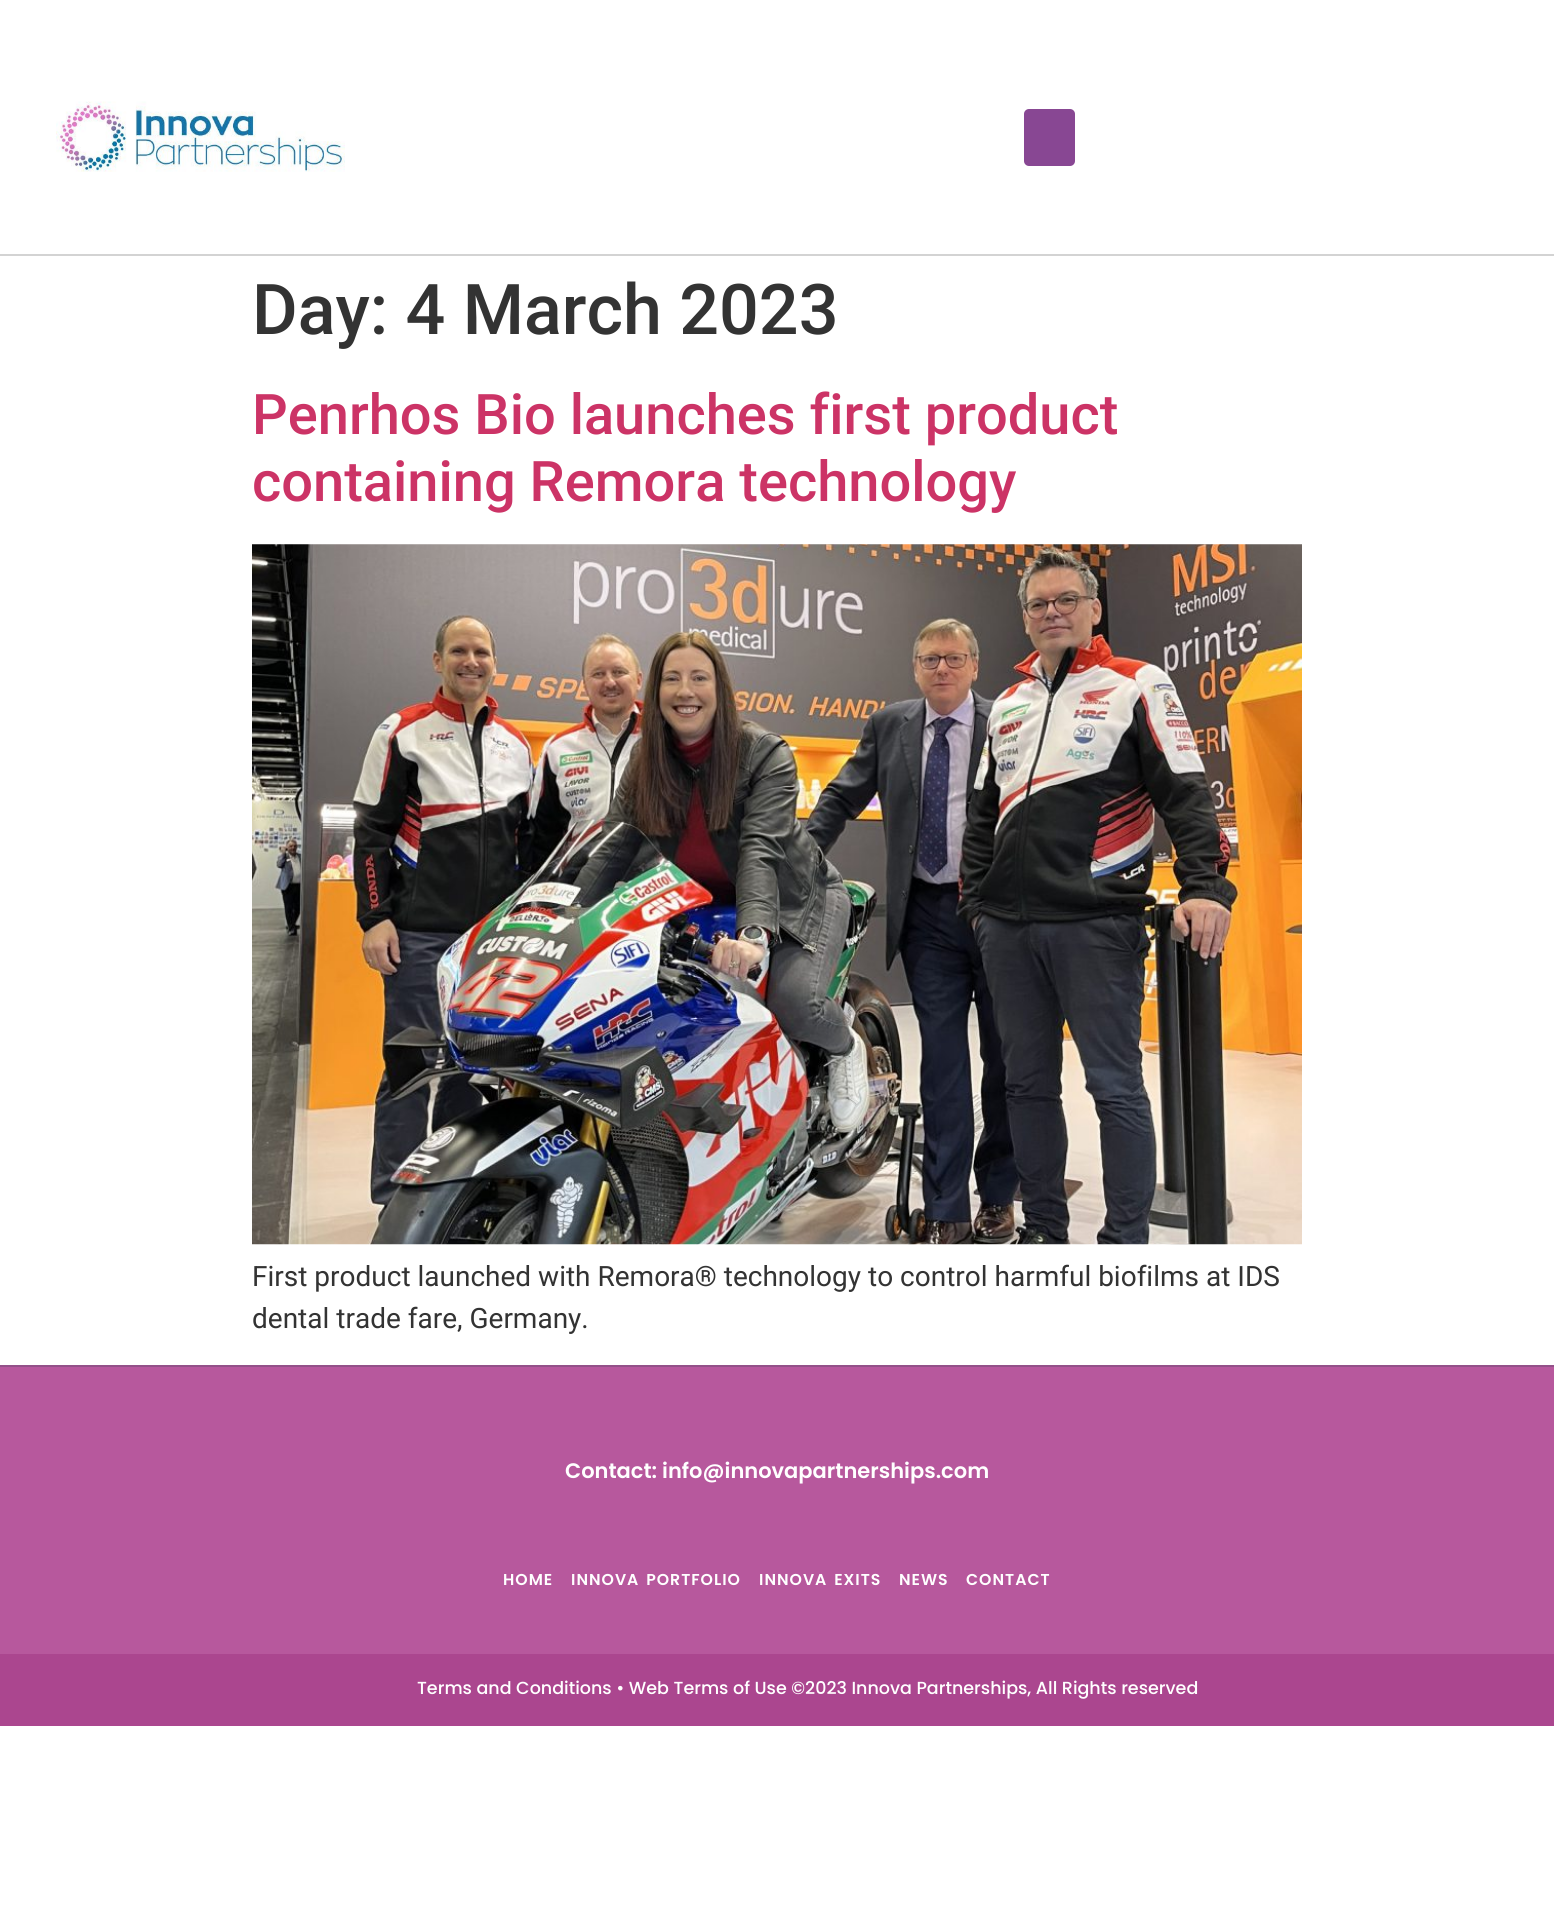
#include <cairo/cairo.h>
#include <math.h>
#include <stddef.h>


static void draw_spaced(cairo_t *cr, double x, double y, const char *s, double letter, double word) {
  cairo_move_to(cr, x, y);
  while (*s) {
    char ch[5] = {0};
    int n = 0;
    do ch[n++] = *s++; while ((*s & 0xC0) == 0x80);
    cairo_show_text(cr, ch);
    cairo_rel_move_to(cr, letter + word * (*ch == ' '), 0);
  }
}

static void rounded_rect(cairo_t *cr, double x, double y, double w, double h, double r) {
  cairo_new_sub_path(cr);
  cairo_arc(cr, x + w - r, y + h - r, r, 0, M_PI / 2);
  cairo_arc(cr, x + r, y + h - r, r, M_PI / 2, M_PI);
  cairo_arc(cr, x + r, y + r, r, M_PI, 1.5 * M_PI);
  cairo_arc(cr, x + w - r, y + r, r, 1.5 * M_PI, 2 * M_PI);
  cairo_close_path(cr);
}

static void draw_image(cairo_t *cr, const char *path, double x, double y, double w, double h) {
  cairo_surface_t *image = cairo_image_surface_create_from_png(path);
  cairo_save(cr);
  cairo_set_source_surface(cr, image, x, y);
  cairo_rectangle(cr, x, y, w, h);
  cairo_fill(cr);
  cairo_restore(cr);
  cairo_surface_destroy(image);
}

static void draw(cairo_t *cr) {
  cairo_set_source_rgb(cr, 1, 1, 1);
  cairo_paint(cr);
  cairo_set_source_rgb(cr, 211 / 255.0, 211 / 255.0, 211 / 255.0);
  cairo_rectangle(cr, 0, 254, 1554, 2);
  cairo_fill(cr);
  draw_image(cr, "images/1.png", 56, 101, 289, 71);
  cairo_set_source_rgb(cr, 136 / 255.0, 71 / 255.0, 147 / 255.0);
  rounded_rect(cr, 1024, 109, 51, 57, 5);
  cairo_fill(cr);
  draw_image(cr, "images/2.png", 252, 544, 1050, 701);
  cairo_set_source_rgb(cr, 183 / 255.0, 88 / 255.0, 157 / 255.0);
  cairo_rectangle(cr, 0, 1367, 1554, 287);
  cairo_fill(cr);
  cairo_set_source_rgb(cr, 147 / 255.0, 81 / 255.0, 137 / 255.0);
  cairo_rectangle(cr, 0, 1365, 1554, 2);
  cairo_fill(cr);
  cairo_set_source_rgb(cr, 171 / 255.0, 70 / 255.0, 143 / 255.0);
  cairo_rectangle(cr, 0, 1654, 1554, 72);
  cairo_fill(cr);
  cairo_select_font_face(cr, "Roboto Medium", CAIRO_FONT_SLANT_NORMAL, CAIRO_FONT_WEIGHT_NORMAL);
  cairo_set_font_size(cr, 70);
  cairo_set_source_rgb(cr, 51 / 255.0, 51 / 255.0, 51 / 255.0);
  cairo_move_to(cr, 252, 334);
  cairo_show_text(cr, "Day: 4 March 2023");
  cairo_set_font_size(cr, 56);
  cairo_set_source_rgb(cr, 204 / 255.0, 51 / 255.0, 102 / 255.0);
  cairo_move_to(cr, 252, 434);
  cairo_show_text(cr, "Penrhos Bio launches first product");
  cairo_move_to(cr, 252, 501);
  cairo_show_text(cr, "containing Remora technology");
  cairo_select_font_face(cr, "Roboto", CAIRO_FONT_SLANT_NORMAL, CAIRO_FONT_WEIGHT_NORMAL);
  cairo_set_font_size(cr, 28);
  cairo_set_source_rgb(cr, 51 / 255.0, 51 / 255.0, 51 / 255.0);
  cairo_move_to(cr, 252, 1286);
  cairo_show_text(cr, "First product launched with Remora® technology to control harmful biofilms at IDS");
  cairo_move_to(cr, 252, 1328);
  cairo_show_text(cr, "dental trade fare, Germany.");
  cairo_select_font_face(cr, "Poppins SemiBold", CAIRO_FONT_SLANT_NORMAL, CAIRO_FONT_WEIGHT_NORMAL);
  cairo_set_font_size(cr, 21);
  cairo_set_source_rgb(cr, 1, 1, 1);
  cairo_move_to(cr, 565, 1478);
  cairo_show_text(cr, "Contact: info@innovapartnerships.com");
  cairo_set_font_size(cr, 15.75);
  draw_spaced(cr, 503, 1585, "HOME", 1, 0);
  draw_spaced(cr, 571, 1585, "INNOVA PORTFOLIO", 1, 2);
  draw_spaced(cr, 759, 1585, "INNOVA EXITS", 1, 2);
  draw_spaced(cr, 899, 1585, "NEWS", 1, 0);
  draw_spaced(cr, 966, 1585, "CONTACT", 1, 0);
  cairo_select_font_face(cr, "Poppins Medium", CAIRO_FONT_SLANT_NORMAL, CAIRO_FONT_WEIGHT_NORMAL);
  cairo_set_font_size(cr, 17.5);
  cairo_move_to(cr, 417, 1694);
  cairo_show_text(cr, "Terms and Conditions • Web Terms of Use ©2023 Innova Partnerships, All Rights reserved");
}

int main(void) {
  cairo_surface_t *surface = cairo_image_surface_create(CAIRO_FORMAT_RGB24, 1554, 1910);
  cairo_t *cr = cairo_create(surface);
  cairo_font_options_t *options = cairo_font_options_create();
  cairo_font_options_set_hint_metrics(options, CAIRO_HINT_METRICS_OFF);
  cairo_font_options_set_hint_style(options, CAIRO_HINT_STYLE_NONE);
  cairo_set_font_options(cr, options);
  cairo_set_miter_limit(cr, 4);
  draw(cr);
  cairo_surface_write_to_png(surface, "out.png");
  cairo_font_options_destroy(options);
  cairo_destroy(cr);
  cairo_surface_destroy(surface);
  return 0;
}
